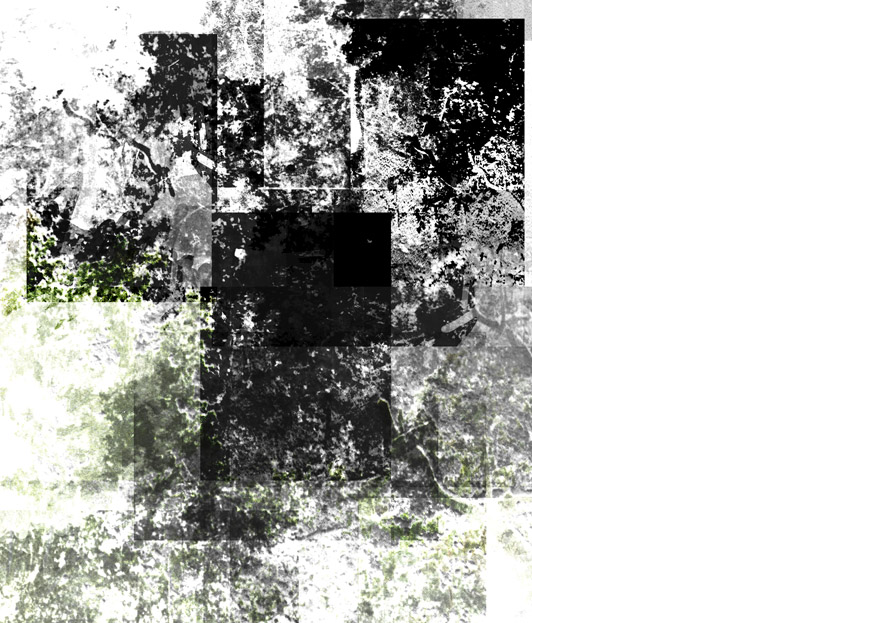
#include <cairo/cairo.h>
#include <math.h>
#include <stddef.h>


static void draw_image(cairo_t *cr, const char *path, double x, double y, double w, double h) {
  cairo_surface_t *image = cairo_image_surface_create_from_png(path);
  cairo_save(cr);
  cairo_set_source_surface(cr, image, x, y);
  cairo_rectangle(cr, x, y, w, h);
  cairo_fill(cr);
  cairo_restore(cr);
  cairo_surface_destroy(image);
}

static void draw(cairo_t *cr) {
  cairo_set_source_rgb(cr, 1, 1, 1);
  cairo_paint(cr);
  draw_image(cr, "images/1.png", 0, 0, 532, 623);
}

int main(void) {
  cairo_surface_t *surface = cairo_image_surface_create(CAIRO_FORMAT_RGB24, 887, 623);
  cairo_t *cr = cairo_create(surface);
  cairo_font_options_t *options = cairo_font_options_create();
  cairo_font_options_set_hint_metrics(options, CAIRO_HINT_METRICS_OFF);
  cairo_font_options_set_hint_style(options, CAIRO_HINT_STYLE_NONE);
  cairo_set_font_options(cr, options);
  cairo_set_miter_limit(cr, 4);
  draw(cr);
  cairo_surface_write_to_png(surface, "out.png");
  cairo_font_options_destroy(options);
  cairo_destroy(cr);
  cairo_surface_destroy(surface);
  return 0;
}
